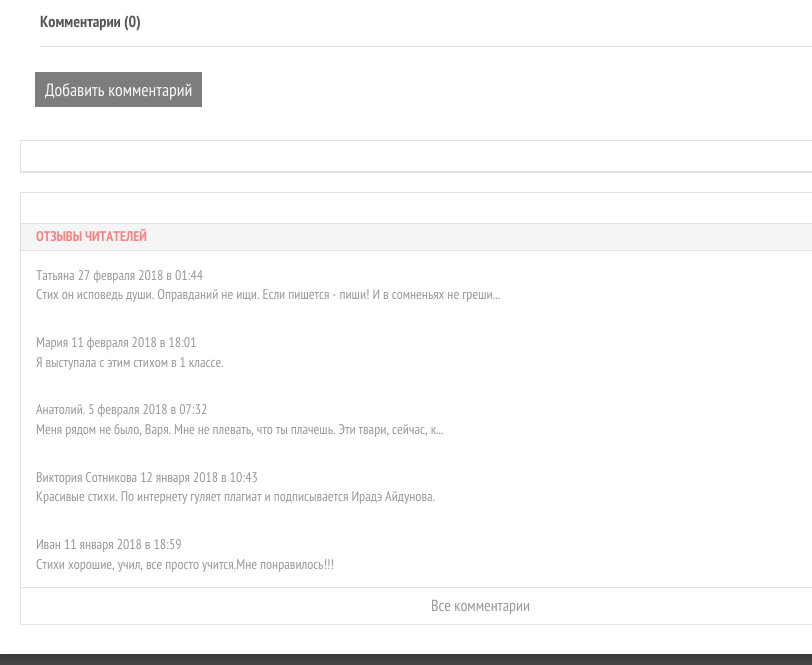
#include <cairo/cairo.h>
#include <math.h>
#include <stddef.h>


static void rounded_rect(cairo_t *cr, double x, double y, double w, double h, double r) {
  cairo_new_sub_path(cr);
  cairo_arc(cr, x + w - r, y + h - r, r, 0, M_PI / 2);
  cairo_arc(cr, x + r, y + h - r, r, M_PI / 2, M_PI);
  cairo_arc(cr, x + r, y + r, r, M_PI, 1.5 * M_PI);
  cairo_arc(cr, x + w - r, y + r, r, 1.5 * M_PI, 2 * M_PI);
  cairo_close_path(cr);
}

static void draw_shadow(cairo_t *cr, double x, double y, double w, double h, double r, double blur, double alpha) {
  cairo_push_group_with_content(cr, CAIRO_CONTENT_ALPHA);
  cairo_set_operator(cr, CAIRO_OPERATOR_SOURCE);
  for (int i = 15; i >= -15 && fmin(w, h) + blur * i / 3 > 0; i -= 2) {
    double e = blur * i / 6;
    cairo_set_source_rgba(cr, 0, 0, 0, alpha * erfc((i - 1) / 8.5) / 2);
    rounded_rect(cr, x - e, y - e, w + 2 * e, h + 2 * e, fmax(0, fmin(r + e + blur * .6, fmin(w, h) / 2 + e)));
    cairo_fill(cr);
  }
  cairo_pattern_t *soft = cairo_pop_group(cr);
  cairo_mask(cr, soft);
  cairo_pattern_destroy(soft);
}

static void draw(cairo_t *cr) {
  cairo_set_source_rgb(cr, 70 / 255.0, 70 / 255.0, 70 / 255.0);
  cairo_paint(cr);
  cairo_set_source_rgb(cr, 44 / 255.0, 44 / 255.0, 44 / 255.0);
  draw_shadow(cr, 0, -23, 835, 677, 0, 7.5, 1);
  cairo_set_source_rgb(cr, 1, 1, 1);
  cairo_rectangle(cr, 0, 0, 812, 654);
  cairo_fill(cr);
  cairo_set_source_rgb(cr, 225 / 255.0, 225 / 255.0, 225 / 255.0);
  cairo_rectangle(cr, 40, 46, 772, 1);
  cairo_fill(cr);
  cairo_set_source_rgb(cr, 125 / 255.0, 125 / 255.0, 125 / 255.0);
  cairo_rectangle(cr, 35, 72, 167, 35);
  cairo_fill(cr);
  cairo_set_source_rgb(cr, 229 / 255.0, 229 / 255.0, 229 / 255.0);
  cairo_rectangle(cr, 20, 172, 792, 1);
  cairo_fill(cr);
  cairo_rectangle(cr, 20.5, 140.5, 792, 31);
  cairo_set_source_rgb(cr, 225 / 255.0, 225 / 255.0, 225 / 255.0);
  cairo_set_line_width(cr, 1);
  cairo_stroke(cr);
  cairo_rectangle(cr, 20, 192, 792, 1);
  cairo_fill(cr);
  cairo_rectangle(cr, 20, 192, 1, 31);
  cairo_fill(cr);
  cairo_set_source_rgb(cr, 229 / 255.0, 229 / 255.0, 229 / 255.0);
  cairo_rectangle(cr, 20, 624, 792, 1);
  cairo_fill(cr);
  cairo_set_source_rgb(cr, 225 / 255.0, 225 / 255.0, 225 / 255.0);
  cairo_rectangle(cr, 20, 223, 792, 1);
  cairo_fill(cr);
  cairo_rectangle(cr, 20, 223, 1, 401);
  cairo_fill(cr);
  cairo_set_source_rgb(cr, 245 / 255.0, 245 / 255.0, 245 / 255.0);
  cairo_rectangle(cr, 21, 224, 791, 26);
  cairo_fill(cr);
  cairo_set_source_rgb(cr, 225 / 255.0, 225 / 255.0, 225 / 255.0);
  cairo_rectangle(cr, 21, 250, 791, 1);
  cairo_fill(cr);
  cairo_rectangle(cr, 21, 587, 791, 1);
  cairo_fill(cr);
  cairo_select_font_face(cr, "PT Sans Narrow", CAIRO_FONT_SLANT_NORMAL, CAIRO_FONT_WEIGHT_BOLD);
  cairo_set_font_size(cr, 16);
  cairo_set_source_rgb(cr, 87 / 255.0, 87 / 255.0, 87 / 255.0);
  cairo_move_to(cr, 40, 27);
  cairo_show_text(cr, "Комментарии (0)");
  cairo_select_font_face(cr, "PT Sans Narrow", CAIRO_FONT_SLANT_NORMAL, CAIRO_FONT_WEIGHT_NORMAL);
  cairo_set_font_size(cr, 17.75);
  cairo_set_source_rgb(cr, 247 / 255.0, 247 / 255.0, 247 / 255.0);
  cairo_move_to(cr, 45, 96);
  cairo_show_text(cr, "Добавить комментарий");
  cairo_select_font_face(cr, "PT Sans Narrow", CAIRO_FONT_SLANT_NORMAL, CAIRO_FONT_WEIGHT_BOLD);
  cairo_set_font_size(cr, 14);
  cairo_set_source_rgb(cr, 247 / 255.0, 130 / 255.0, 130 / 255.0);
  cairo_move_to(cr, 36, 241);
  cairo_show_text(cr, "ОТЗЫВЫ ЧИТАТЕЛЕЙ");
  cairo_select_font_face(cr, "PT Sans Narrow", CAIRO_FONT_SLANT_NORMAL, CAIRO_FONT_WEIGHT_NORMAL);
  cairo_set_source_rgb(cr, 153 / 255.0, 153 / 255.0, 153 / 255.0);
  cairo_move_to(cr, 36, 280);
  cairo_show_text(cr, "Татьяна 27 февраля 2018 в 01:44");
  cairo_move_to(cr, 36, 299);
  cairo_show_text(cr, "Стих он исповедь души. Оправданий не ищи. Если пишется - пиши! И в сомненьях не греши...");
  cairo_move_to(cr, 36, 347);
  cairo_show_text(cr, "Мария 11 февраля 2018 в 18:01");
  cairo_move_to(cr, 36, 367);
  cairo_show_text(cr, "Я выступала с этим стихом в 1 классе.");
  cairo_move_to(cr, 36, 414);
  cairo_show_text(cr, "Анатолий. 5 февраля 2018 в 07:32");
  cairo_move_to(cr, 36, 434);
  cairo_show_text(cr, "Меня рядом не было, Варя. Мне не плевать, что ты плачешь. Эти твари, сейчас, к...");
  cairo_move_to(cr, 36, 482);
  cairo_show_text(cr, "Виктория Сотникова 12 января 2018 в 10:43");
  cairo_move_to(cr, 36, 501);
  cairo_show_text(cr, "Красивые стихи. По интернету гуляет плагиат и подписывается Ирадэ Айдунова.");
  cairo_move_to(cr, 36, 549);
  cairo_show_text(cr, "Иван 11 января 2018 в 18:59");
  cairo_move_to(cr, 36, 569);
  cairo_show_text(cr, "Стихи хорошие, учил, все просто учится.Мне понравилось!!!");
  cairo_set_font_size(cr, 16);
  cairo_move_to(cr, 431, 611);
  cairo_show_text(cr, "Все комментарии");
}

int main(void) {
  cairo_surface_t *surface = cairo_image_surface_create(CAIRO_FORMAT_RGB24, 812, 665);
  cairo_t *cr = cairo_create(surface);
  cairo_font_options_t *options = cairo_font_options_create();
  cairo_font_options_set_hint_metrics(options, CAIRO_HINT_METRICS_OFF);
  cairo_font_options_set_hint_style(options, CAIRO_HINT_STYLE_NONE);
  cairo_set_font_options(cr, options);
  cairo_set_miter_limit(cr, 4);
  draw(cr);
  cairo_surface_write_to_png(surface, "out.png");
  cairo_font_options_destroy(options);
  cairo_destroy(cr);
  cairo_surface_destroy(surface);
  return 0;
}
